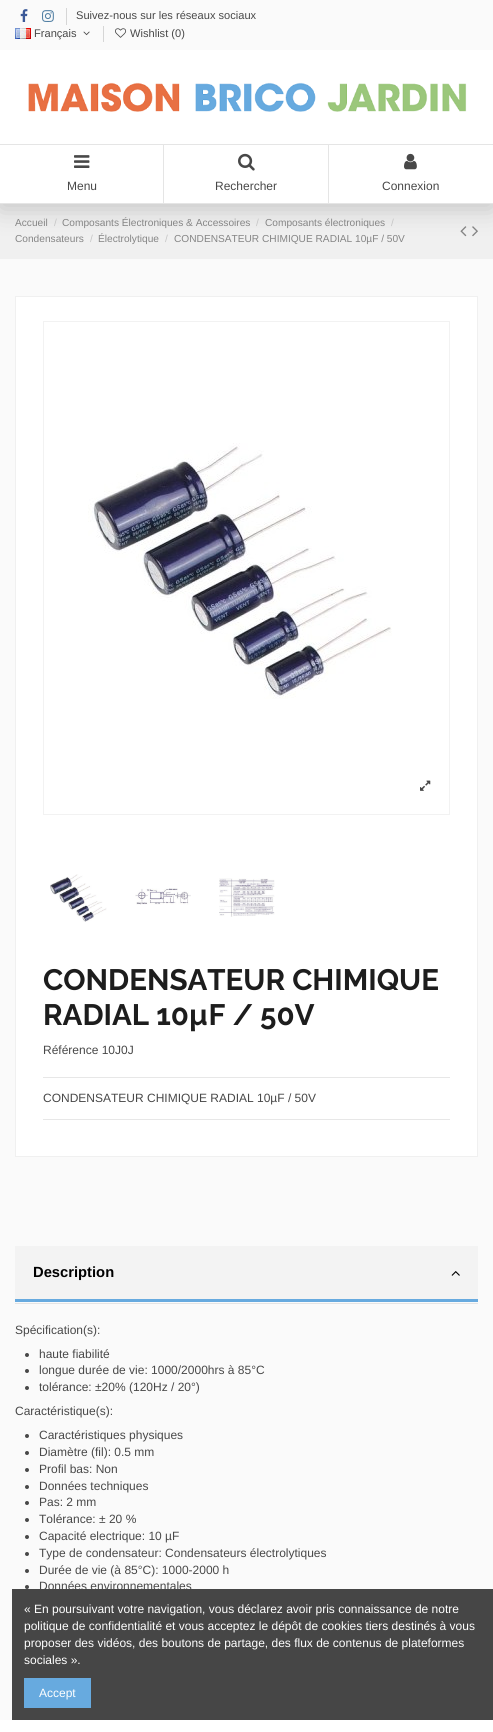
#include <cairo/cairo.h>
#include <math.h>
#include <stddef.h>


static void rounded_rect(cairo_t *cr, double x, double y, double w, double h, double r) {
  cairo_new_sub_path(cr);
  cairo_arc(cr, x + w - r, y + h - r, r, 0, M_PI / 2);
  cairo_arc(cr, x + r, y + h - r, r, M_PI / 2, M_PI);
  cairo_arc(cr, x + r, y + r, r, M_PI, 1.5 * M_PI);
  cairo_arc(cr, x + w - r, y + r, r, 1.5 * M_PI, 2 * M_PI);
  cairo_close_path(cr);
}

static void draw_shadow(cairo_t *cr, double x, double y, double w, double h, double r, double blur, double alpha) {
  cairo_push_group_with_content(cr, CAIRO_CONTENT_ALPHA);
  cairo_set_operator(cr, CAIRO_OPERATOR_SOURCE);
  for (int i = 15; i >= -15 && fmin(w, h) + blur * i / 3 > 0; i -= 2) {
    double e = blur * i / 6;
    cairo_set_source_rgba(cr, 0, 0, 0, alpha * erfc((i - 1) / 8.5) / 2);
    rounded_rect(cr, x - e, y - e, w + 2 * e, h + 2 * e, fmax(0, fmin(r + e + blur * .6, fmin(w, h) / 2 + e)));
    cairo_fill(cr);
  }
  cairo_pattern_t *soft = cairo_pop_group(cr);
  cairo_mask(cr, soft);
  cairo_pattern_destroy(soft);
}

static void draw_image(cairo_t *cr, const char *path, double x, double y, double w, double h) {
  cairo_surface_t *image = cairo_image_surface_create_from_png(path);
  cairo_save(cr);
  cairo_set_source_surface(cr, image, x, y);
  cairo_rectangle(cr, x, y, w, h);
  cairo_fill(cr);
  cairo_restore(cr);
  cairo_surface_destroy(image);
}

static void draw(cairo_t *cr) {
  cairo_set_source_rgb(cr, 250 / 255.0, 250 / 255.0, 250 / 255.0);
  cairo_paint(cr);
  cairo_set_source_rgb(cr, 240 / 255.0, 240 / 255.0, 240 / 255.0);
  cairo_rectangle(cr, 0, 204, 493, 55);
  cairo_fill(cr);
  draw_image(cr, "images/10.png", 460, 226, 7, 11);
  draw_image(cr, "images/11.png", 472, 226, 6, 11);
  cairo_set_source_rgb(cr, 0, 0, 0);
  draw_shadow(cr, 0, 5, 493, 204, 0, 12.5, 0.18);
  cairo_set_source_rgb(cr, 1, 1, 1);
  cairo_rectangle(cr, 0, 50, 493, 154);
  cairo_fill(cr);
  cairo_set_source_rgb(cr, 250 / 255.0, 250 / 255.0, 250 / 255.0);
  cairo_rectangle(cr, 0, 0, 493, 50);
  cairo_fill(cr);
  draw_image(cr, "images/1.png", 20, 9, 8, 13);
  draw_image(cr, "images/2.png", 42, 10, 12, 12);
  cairo_set_source_rgb(cr, 214 / 255.0, 214 / 255.0, 214 / 255.0);
  cairo_rectangle(cr, 66, 8, 1, 17);
  cairo_fill(cr);
  draw_image(cr, "images/3.png", 15, 28, 16, 11);
  draw_image(cr, "images/4.png", 83, 31, 7, 5);
  cairo_rectangle(cr, 103, 26, 1, 16);
  cairo_fill(cr);
  draw_image(cr, "images/5.png", 115, 28, 12, 10);
  draw_image(cr, "images/6.png", 28, 82, 439, 30);
  cairo_set_source_rgb(cr, 229 / 255.0, 229 / 255.0, 229 / 255.0);
  cairo_new_path(cr);
  cairo_move_to(cr, 0, 144);
  cairo_line_to(cr, 164, 144);
  cairo_line_to(cr, 163, 145);
  cairo_line_to(cr, 0, 145);
  cairo_close_path(cr);
  cairo_fill(cr);
  cairo_set_source_rgba(cr, 21 / 255.0, 21 / 255.0, 21 / 255.0, 0.11);
  cairo_new_path(cr);
  cairo_move_to(cr, 164, 144);
  cairo_line_to(cr, 164, 204);
  cairo_line_to(cr, 163, 203);
  cairo_line_to(cr, 163, 145);
  cairo_close_path(cr);
  cairo_fill(cr);
  cairo_new_path(cr);
  cairo_move_to(cr, 164, 204);
  cairo_line_to(cr, 0, 204);
  cairo_line_to(cr, 0, 203);
  cairo_line_to(cr, 163, 203);
  cairo_close_path(cr);
  cairo_fill(cr);
  draw_image(cr, "images/7.png", 74, 155, 16, 13);
  cairo_set_source_rgb(cr, 229 / 255.0, 229 / 255.0, 229 / 255.0);
  cairo_new_path(cr);
  cairo_move_to(cr, 164, 144);
  cairo_line_to(cr, 329, 144);
  cairo_line_to(cr, 328, 145);
  cairo_line_to(cr, 164, 145);
  cairo_close_path(cr);
  cairo_fill(cr);
  cairo_set_source_rgba(cr, 21 / 255.0, 21 / 255.0, 21 / 255.0, 0.11);
  cairo_new_path(cr);
  cairo_move_to(cr, 329, 144);
  cairo_line_to(cr, 329, 204);
  cairo_line_to(cr, 328, 203);
  cairo_line_to(cr, 328, 145);
  cairo_close_path(cr);
  cairo_fill(cr);
  cairo_new_path(cr);
  cairo_move_to(cr, 329, 204);
  cairo_line_to(cr, 164, 204);
  cairo_line_to(cr, 164, 203);
  cairo_line_to(cr, 328, 203);
  cairo_close_path(cr);
  cairo_fill(cr);
  draw_image(cr, "images/8.png", 238, 153, 17, 18);
  cairo_set_source_rgb(cr, 229 / 255.0, 229 / 255.0, 229 / 255.0);
  cairo_rectangle(cr, 329, 144, 164, 1);
  cairo_fill(cr);
  cairo_rectangle(cr, 329, 203, 164, 1);
  cairo_fill(cr);
  draw_image(cr, "images/9.png", 404, 153, 13, 17);
  cairo_set_source_rgb(cr, 1, 1, 1);
  cairo_rectangle(cr, 15.5, 296.5, 462, 860);
  cairo_fill_preserve(cr);
  cairo_set_source_rgb(cr, 240 / 255.0, 240 / 255.0, 240 / 255.0);
  cairo_set_line_width(cr, 1);
  cairo_stroke(cr);
  cairo_rectangle(cr, 43.5, 321.5, 406, 493);
  cairo_set_source_rgb(cr, 242 / 255.0, 242 / 255.0, 242 / 255.0);
  cairo_stroke(cr);
  draw_image(cr, "images/12.png", 88, 443, 304, 256);
  draw_image(cr, "images/13.png", 420, 780, 11, 11);
  draw_image(cr, "images/14.png", 50, 874, 57, 48);
  draw_image(cr, "images/15.png", 135, 888, 56, 17);
  draw_image(cr, "images/16.png", 219, 878, 56, 39);
  cairo_set_source_rgb(cr, 231 / 255.0, 231 / 255.0, 231 / 255.0);
  cairo_rectangle(cr, 43, 1077, 407, 1);
  cairo_fill(cr);
  cairo_rectangle(cr, 43, 1119, 407, 1);
  cairo_fill(cr);
  cairo_set_source_rgb(cr, 1, 1, 1);
  cairo_rectangle(cr, 0, 1720, 493, 12);
  cairo_fill(cr);
  cairo_set_source_rgb(cr, 228 / 255.0, 228 / 255.0, 228 / 255.0);
  cairo_rectangle(cr, 15, 1303, 463, 1);
  cairo_fill(cr);
  cairo_set_source_rgb(cr, 243 / 255.0, 243 / 255.0, 243 / 255.0);
  cairo_rectangle(cr, 15, 1246, 463, 53);
  cairo_fill(cr);
  cairo_set_source_rgb(cr, 103 / 255.0, 170 / 255.0, 223 / 255.0);
  cairo_rectangle(cr, 15, 1299, 463, 3);
  cairo_fill(cr);
  draw_image(cr, "images/17.png", 451, 1271, 9, 5);
  cairo_set_source_rgb(cr, 72 / 255.0, 72 / 255.0, 72 / 255.0);
  cairo_arc(cr, 27, 1355, 2, 0, 2 * M_PI);
  cairo_fill(cr);
  cairo_arc(cr, 27, 1371, 2, 0, 2 * M_PI);
  cairo_fill(cr);
  cairo_arc(cr, 27, 1388, 2, 0, 2 * M_PI);
  cairo_fill(cr);
  cairo_arc(cr, 27, 1436, 2, 0, 2 * M_PI);
  cairo_fill(cr);
  cairo_arc(cr, 27, 1453, 2, 0, 2 * M_PI);
  cairo_fill(cr);
  cairo_arc(cr, 27, 1470, 2, 0, 2 * M_PI);
  cairo_fill(cr);
  cairo_arc(cr, 27, 1487, 2, 0, 2 * M_PI);
  cairo_fill(cr);
  cairo_arc(cr, 27, 1503, 2, 0, 2 * M_PI);
  cairo_fill(cr);
  cairo_arc(cr, 27, 1520, 2, 0, 2 * M_PI);
  cairo_fill(cr);
  cairo_arc(cr, 27, 1537, 2, 0, 2 * M_PI);
  cairo_fill(cr);
  cairo_arc(cr, 27, 1554, 2, 0, 2 * M_PI);
  cairo_fill(cr);
  cairo_arc(cr, 27, 1571, 2, 0, 2 * M_PI);
  cairo_fill(cr);
  cairo_arc(cr, 27, 1587, 2, 0, 2 * M_PI);
  cairo_fill(cr);
  cairo_select_font_face(cr, "Liberation Sans", CAIRO_FONT_SLANT_NORMAL, CAIRO_FONT_WEIGHT_NORMAL);
  cairo_set_font_size(cr, 11.1);
  cairo_move_to(cr, 76, 19);
  cairo_show_text(cr, "Suivez-nous sur les réseaux sociaux");
  cairo_move_to(cr, 34, 37);
  cairo_show_text(cr, "Français");
  cairo_move_to(cr, 130, 37);
  cairo_show_text(cr, "Wishlist (0)");
  cairo_set_font_size(cr, 12);
  cairo_move_to(cr, 67, 190);
  cairo_show_text(cr, "Menu");
  cairo_move_to(cr, 215, 190);
  cairo_show_text(cr, "Rechercher");
  cairo_move_to(cr, 382, 190);
  cairo_show_text(cr, "Connexion");
  cairo_set_font_size(cr, 10.15);
  cairo_set_source_rgb(cr, 133 / 255.0, 133 / 255.0, 133 / 255.0);
  cairo_move_to(cr, 15, 226);
  cairo_show_text(cr, "Accueil");
  cairo_set_source_rgb(cr, 197 / 255.0, 197 / 255.0, 197 / 255.0);
  cairo_move_to(cr, 54, 226);
  cairo_show_text(cr, "/");
  cairo_set_source_rgb(cr, 133 / 255.0, 133 / 255.0, 133 / 255.0);
  cairo_move_to(cr, 62, 226);
  cairo_show_text(cr, "Composants Électroniques & Accessoires");
  cairo_set_source_rgb(cr, 197 / 255.0, 197 / 255.0, 197 / 255.0);
  cairo_move_to(cr, 256, 226);
  cairo_show_text(cr, "/");
  cairo_set_source_rgb(cr, 133 / 255.0, 133 / 255.0, 133 / 255.0);
  cairo_move_to(cr, 265, 226);
  cairo_show_text(cr, "Composants électroniques");
  cairo_set_source_rgb(cr, 197 / 255.0, 197 / 255.0, 197 / 255.0);
  cairo_move_to(cr, 391, 226);
  cairo_show_text(cr, "/");
  cairo_set_source_rgb(cr, 133 / 255.0, 133 / 255.0, 133 / 255.0);
  cairo_move_to(cr, 15, 242);
  cairo_show_text(cr, "Condensateurs");
  cairo_set_source_rgb(cr, 197 / 255.0, 197 / 255.0, 197 / 255.0);
  cairo_move_to(cr, 90, 242);
  cairo_show_text(cr, "/");
  cairo_set_source_rgb(cr, 133 / 255.0, 133 / 255.0, 133 / 255.0);
  cairo_move_to(cr, 98, 242);
  cairo_show_text(cr, "Électrolytique");
  cairo_set_source_rgb(cr, 197 / 255.0, 197 / 255.0, 197 / 255.0);
  cairo_move_to(cr, 165, 242);
  cairo_show_text(cr, "/");
  cairo_set_source_rgb(cr, 133 / 255.0, 133 / 255.0, 133 / 255.0);
  cairo_move_to(cr, 174, 242);
  cairo_show_text(cr, "CONDENSATEUR CHIMIQUE RADIAL 10µF / 50V");
  cairo_select_font_face(cr, "Raleway", CAIRO_FONT_SLANT_NORMAL, CAIRO_FONT_WEIGHT_BOLD);
  cairo_set_font_size(cr, 29.5);
  cairo_set_source_rgb(cr, 29 / 255.0, 29 / 255.0, 29 / 255.0);
  cairo_move_to(cr, 43, 990);
  cairo_show_text(cr, "CONDENSATEUR CHIMIQUE");
  cairo_move_to(cr, 43, 1025);
  cairo_show_text(cr, "RADIAL 10µF / 50V");
  cairo_select_font_face(cr, "Liberation Sans", CAIRO_FONT_SLANT_NORMAL, CAIRO_FONT_WEIGHT_NORMAL);
  cairo_set_font_size(cr, 12);
  cairo_set_source_rgb(cr, 72 / 255.0, 72 / 255.0, 72 / 255.0);
  cairo_move_to(cr, 43, 1054);
  cairo_show_text(cr, "Référence 10J0J");
  cairo_move_to(cr, 43, 1102);
  cairo_show_text(cr, "CONDENSATEUR CHIMIQUE RADIAL 10µF / 50V");
  cairo_select_font_face(cr, "Liberation Sans", CAIRO_FONT_SLANT_NORMAL, CAIRO_FONT_WEIGHT_BOLD);
  cairo_set_font_size(cr, 14.75);
  cairo_set_source_rgb(cr, 0, 0, 0);
  cairo_move_to(cr, 33, 1277);
  cairo_show_text(cr, "Description");
  cairo_select_font_face(cr, "Liberation Sans", CAIRO_FONT_SLANT_NORMAL, CAIRO_FONT_WEIGHT_NORMAL);
  cairo_set_font_size(cr, 12);
  cairo_set_source_rgb(cr, 72 / 255.0, 72 / 255.0, 72 / 255.0);
  cairo_move_to(cr, 15, 1334);
  cairo_show_text(cr, "Spécification(s):");
  cairo_move_to(cr, 39, 1358);
  cairo_show_text(cr, "haute fiabilité");
  cairo_move_to(cr, 39, 1374);
  cairo_show_text(cr, "longue durée de vie: 1000/2000hrs à 85°C");
  cairo_move_to(cr, 39, 1391);
  cairo_show_text(cr, "tolérance: ±20% (120Hz / 20°)");
  cairo_move_to(cr, 15, 1415);
  cairo_show_text(cr, "Caractéristique(s):");
  cairo_move_to(cr, 39, 1439);
  cairo_show_text(cr, "Caractéristiques physiques");
  cairo_move_to(cr, 39, 1456);
  cairo_show_text(cr, "Diamètre (fil): 0.5 mm");
  cairo_move_to(cr, 39, 1473);
  cairo_show_text(cr, "Profil bas: Non");
  cairo_move_to(cr, 39, 1490);
  cairo_show_text(cr, "Données techniques");
  cairo_move_to(cr, 39, 1506);
  cairo_show_text(cr, "Pas: 2 mm");
  cairo_move_to(cr, 39, 1523);
  cairo_show_text(cr, "Tolérance: ± 20 %");
  cairo_move_to(cr, 39, 1540);
  cairo_show_text(cr, "Capacité electrique: 10 µF");
  cairo_move_to(cr, 39, 1557);
  cairo_show_text(cr, "Type de condensateur: Condensateurs électrolytiques");
  cairo_move_to(cr, 39, 1574);
  cairo_show_text(cr, "Durée de vie (à 85°C): 1000-2000 h");
  cairo_move_to(cr, 39, 1590);
  cairo_show_text(cr, "Données environnementales");
  cairo_set_source_rgb(cr, 70 / 255.0, 70 / 255.0, 70 / 255.0);
  cairo_rectangle(cr, 12, 1589, 481, 131);
  cairo_fill(cr);
  cairo_set_source_rgb(cr, 1, 1, 1);
  cairo_move_to(cr, 24, 1613);
  cairo_show_text(cr, "« En poursuivant votre navigation, vous déclarez avoir pris connaissance de notre");
  cairo_move_to(cr, 24, 1630);
  cairo_show_text(cr, "politique de confidentialité et vous acceptez le dépôt de cookies tiers destinés à vous");
  cairo_move_to(cr, 24, 1647);
  cairo_show_text(cr, "proposer des vidéos, des boutons de partage, des flux de contenus de plateformes");
  cairo_move_to(cr, 24, 1664);
  cairo_show_text(cr, "sociales ».");
  cairo_set_source_rgb(cr, 103 / 255.0, 170 / 255.0, 223 / 255.0);
  cairo_rectangle(cr, 24, 1678, 67, 30);
  cairo_fill(cr);
  cairo_set_source_rgb(cr, 1, 1, 1);
  cairo_move_to(cr, 39, 1697);
  cairo_show_text(cr, "Accept");
}

int main(void) {
  cairo_surface_t *surface = cairo_image_surface_create(CAIRO_FORMAT_RGB24, 493, 1732);
  cairo_t *cr = cairo_create(surface);
  cairo_font_options_t *options = cairo_font_options_create();
  cairo_font_options_set_hint_metrics(options, CAIRO_HINT_METRICS_OFF);
  cairo_font_options_set_hint_style(options, CAIRO_HINT_STYLE_NONE);
  cairo_set_font_options(cr, options);
  cairo_set_miter_limit(cr, 4);
  draw(cr);
  cairo_surface_write_to_png(surface, "out.png");
  cairo_font_options_destroy(options);
  cairo_destroy(cr);
  cairo_surface_destroy(surface);
  return 0;
}
